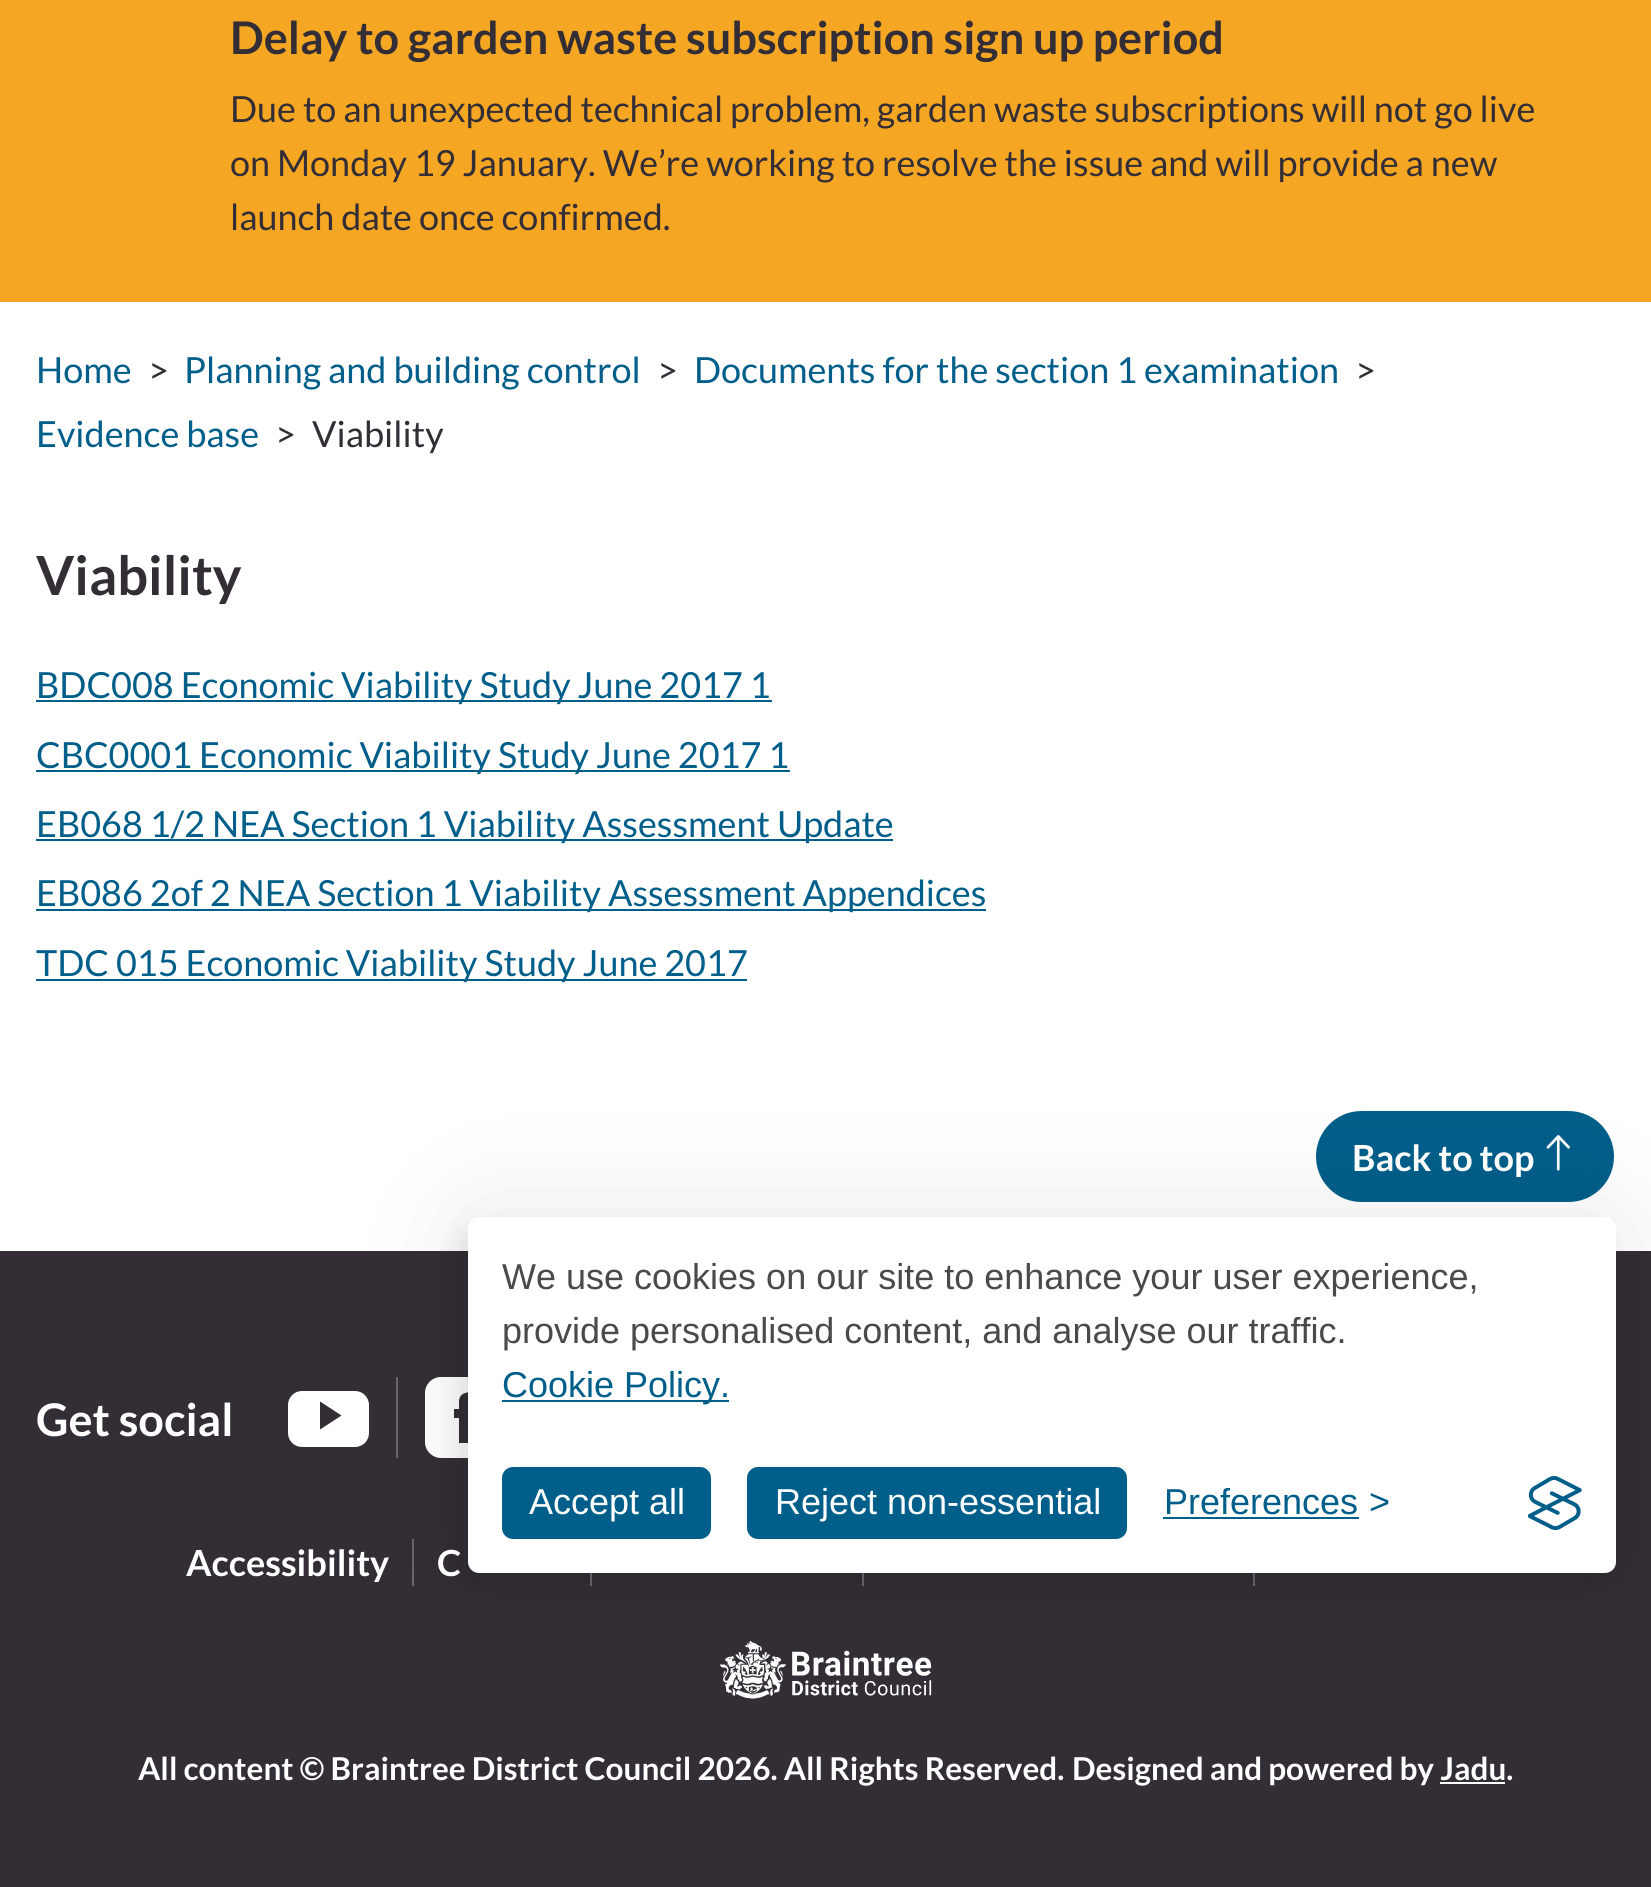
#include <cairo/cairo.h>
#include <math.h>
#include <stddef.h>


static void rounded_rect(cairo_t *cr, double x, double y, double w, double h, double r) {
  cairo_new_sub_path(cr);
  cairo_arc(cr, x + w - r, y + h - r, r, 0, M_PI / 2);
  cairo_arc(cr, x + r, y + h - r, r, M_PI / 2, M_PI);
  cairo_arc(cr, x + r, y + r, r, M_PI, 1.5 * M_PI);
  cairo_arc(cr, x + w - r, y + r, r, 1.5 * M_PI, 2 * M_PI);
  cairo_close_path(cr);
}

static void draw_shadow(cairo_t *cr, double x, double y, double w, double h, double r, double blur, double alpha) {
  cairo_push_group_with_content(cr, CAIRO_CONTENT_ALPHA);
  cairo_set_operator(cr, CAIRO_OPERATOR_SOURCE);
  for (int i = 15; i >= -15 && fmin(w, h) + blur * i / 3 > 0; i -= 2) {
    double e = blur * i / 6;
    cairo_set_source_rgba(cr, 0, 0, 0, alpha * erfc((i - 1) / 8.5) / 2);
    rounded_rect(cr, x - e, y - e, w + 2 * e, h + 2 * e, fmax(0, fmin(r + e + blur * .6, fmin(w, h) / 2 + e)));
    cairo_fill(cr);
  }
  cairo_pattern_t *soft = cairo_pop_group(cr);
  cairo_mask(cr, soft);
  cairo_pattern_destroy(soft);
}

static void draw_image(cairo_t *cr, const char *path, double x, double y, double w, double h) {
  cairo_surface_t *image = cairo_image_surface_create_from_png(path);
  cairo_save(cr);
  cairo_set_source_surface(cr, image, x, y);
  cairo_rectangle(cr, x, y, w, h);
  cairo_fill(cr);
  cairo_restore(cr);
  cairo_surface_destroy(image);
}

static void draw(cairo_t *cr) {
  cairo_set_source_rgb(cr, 1, 1, 1);
  cairo_paint(cr);
  cairo_set_source_rgb(cr, 245 / 255.0, 166 / 255.0, 35 / 255.0);
  cairo_rectangle(cr, 0, 0, 1651, 302);
  cairo_fill(cr);
  cairo_set_source_rgb(cr, 0, 94 / 255.0, 138 / 255.0);
  cairo_rectangle(cr, 36, 700, 736, 2);
  cairo_fill(cr);
  cairo_rectangle(cr, 36, 770, 754, 2);
  cairo_fill(cr);
  cairo_rectangle(cr, 36, 839, 857, 2);
  cairo_fill(cr);
  cairo_rectangle(cr, 36, 909, 950, 2);
  cairo_fill(cr);
  cairo_rectangle(cr, 36, 979, 711, 2);
  cairo_fill(cr);
  cairo_set_source_rgb(cr, 51 / 255.0, 46 / 255.0, 53 / 255.0);
  cairo_rectangle(cr, 0, 1251, 1651, 636);
  cairo_fill(cr);
  cairo_set_source_rgb(cr, 0, 94 / 255.0, 138 / 255.0);
  rounded_rect(cr, 1315, 1110, 300, 93, 46.5);
  cairo_fill_preserve(cr);
  cairo_set_source_rgb(cr, 1, 1, 1);
  cairo_stroke(cr);
  draw_image(cr, "images/1.png", 1546, 1135, 24, 36);
  cairo_set_source_rgb(cr, 105 / 255.0, 102 / 255.0, 112 / 255.0);
  cairo_rectangle(cr, 396, 1377, 2, 81);
  cairo_fill(cr);
  cairo_set_source_rgb(cr, 1, 1, 1);
  rounded_rect(cr, 288, 1391, 81, 56, 14);
  cairo_fill(cr);
  cairo_set_source_rgb(cr, 51 / 255.0, 46 / 255.0, 53 / 255.0);
  cairo_new_path(cr);
  cairo_move_to(cr, 320, 1429.5);
  cairo_line_to(cr, 320, 1401.5);
  cairo_line_to(cr, 341.5, 1415.5);
  cairo_close_path(cr);
  cairo_fill(cr);
  cairo_set_source_rgb(cr, 1, 1, 1);
  rounded_rect(cr, 425, 1377, 81, 81, 16);
  cairo_fill(cr);
  cairo_set_source_rgb(cr, 51 / 255.0, 46 / 255.0, 53 / 255.0);
  cairo_new_path(cr);
  cairo_move_to(cr, 459, 1402);
  cairo_line_to(cr, 459, 1409);
  cairo_line_to(cr, 454, 1409);
  cairo_line_to(cr, 454, 1418);
  cairo_line_to(cr, 459, 1418);
  cairo_line_to(cr, 459, 1443);
  cairo_line_to(cr, 470, 1443);
  cairo_line_to(cr, 470, 1418);
  cairo_line_to(cr, 477, 1418);
  cairo_line_to(cr, 478, 1409);
  cairo_line_to(cr, 470, 1409);
  cairo_curve_to(cr, 470, 1400, 469, 1401, 478, 1401);
  cairo_line_to(cr, 478, 1392);
  cairo_curve_to(cr, 470, 1392, 459, 1391, 459, 1402);
  cairo_close_path(cr);
  cairo_fill(cr);
  cairo_set_source_rgb(cr, 105 / 255.0, 102 / 255.0, 112 / 255.0);
  cairo_rectangle(cr, 412, 1539, 2, 47);
  cairo_fill(cr);
  cairo_rectangle(cr, 590, 1573, 2, 13);
  cairo_fill(cr);
  cairo_rectangle(cr, 862, 1573, 2, 13);
  cairo_fill(cr);
  cairo_rectangle(cr, 1253, 1573, 2, 13);
  cairo_fill(cr);
  draw_image(cr, "images/2.png", 720, 1641, 212, 58);
  cairo_set_source_rgb(cr, 1, 1, 1);
  cairo_rectangle(cr, 1440, 1782, 65, 2);
  cairo_fill(cr);
  cairo_set_source_rgb(cr, 0, 0, 0);
  draw_shadow(cr, 468, 1217, 1148, 356, 11, 56, 0.1);
  draw_shadow(cr, 457, 1229, 1147, 355, 11, 11, 0.07);
  cairo_set_source_rgb(cr, 1, 1, 1);
  rounded_rect(cr, 468, 1217, 1148, 356, 11);
  cairo_fill(cr);
  cairo_set_source_rgb(cr, 0, 94 / 255.0, 138 / 255.0);
  cairo_rectangle(cr, 502, 1400, 227, 2);
  cairo_fill(cr);
  rounded_rect(cr, 504.5, 1469.5, 204, 67, 8.5);
  cairo_fill_preserve(cr);
  cairo_set_line_width(cr, 5);
  cairo_stroke(cr);
  rounded_rect(cr, 749.5, 1469.5, 375, 67, 8.5);
  cairo_fill_preserve(cr);
  cairo_stroke(cr);
  cairo_rectangle(cr, 1163, 1517, 196, 2);
  cairo_fill(cr);
  draw_image(cr, "images/3.png", 1528, 1476, 54, 54);
  cairo_select_font_face(cr, "Lato", CAIRO_FONT_SLANT_NORMAL, CAIRO_FONT_WEIGHT_BOLD);
  cairo_set_font_size(cr, 45);
  cairo_set_source_rgb(cr, 51 / 255.0, 46 / 255.0, 53 / 255.0);
  cairo_move_to(cr, 230, 54);
  cairo_show_text(cr, "Delay to garden waste subscription sign up period");
  cairo_select_font_face(cr, "Lato", CAIRO_FONT_SLANT_NORMAL, CAIRO_FONT_WEIGHT_NORMAL);
  cairo_set_font_size(cr, 36);
  cairo_move_to(cr, 230, 122);
  cairo_show_text(cr, "Due to an unexpected technical problem, garden waste subscriptions will not go live");
  cairo_move_to(cr, 230, 176);
  cairo_show_text(cr, "on Monday 19 January. We’re working to resolve the issue and will provide a new");
  cairo_move_to(cr, 230, 230);
  cairo_show_text(cr, "launch date once confirmed.");
  cairo_set_source_rgb(cr, 0, 94 / 255.0, 138 / 255.0);
  cairo_move_to(cr, 36, 383);
  cairo_show_text(cr, "Home");
  cairo_set_source_rgb(cr, 51 / 255.0, 46 / 255.0, 53 / 255.0);
  cairo_move_to(cr, 148, 383);
  cairo_show_text(cr, ">");
  cairo_set_source_rgb(cr, 0, 94 / 255.0, 138 / 255.0);
  cairo_move_to(cr, 184, 383);
  cairo_show_text(cr, "Planning and building control");
  cairo_set_source_rgb(cr, 51 / 255.0, 46 / 255.0, 53 / 255.0);
  cairo_move_to(cr, 657, 383);
  cairo_show_text(cr, ">");
  cairo_set_source_rgb(cr, 0, 94 / 255.0, 138 / 255.0);
  cairo_move_to(cr, 694, 383);
  cairo_show_text(cr, "Documents for the section 1 examination");
  cairo_set_source_rgb(cr, 51 / 255.0, 46 / 255.0, 53 / 255.0);
  cairo_move_to(cr, 1355, 383);
  cairo_show_text(cr, ">");
  cairo_set_source_rgb(cr, 0, 94 / 255.0, 138 / 255.0);
  cairo_move_to(cr, 36, 447);
  cairo_show_text(cr, "Evidence base");
  cairo_set_source_rgb(cr, 51 / 255.0, 46 / 255.0, 53 / 255.0);
  cairo_move_to(cr, 275, 447);
  cairo_show_text(cr, ">");
  cairo_move_to(cr, 312, 447);
  cairo_show_text(cr, "Viability");
  cairo_select_font_face(cr, "Lato", CAIRO_FONT_SLANT_NORMAL, CAIRO_FONT_WEIGHT_BOLD);
  cairo_set_font_size(cr, 54);
  cairo_move_to(cr, 36, 595);
  cairo_show_text(cr, "Viability");
  cairo_select_font_face(cr, "Lato", CAIRO_FONT_SLANT_NORMAL, CAIRO_FONT_WEIGHT_NORMAL);
  cairo_set_font_size(cr, 36);
  cairo_set_source_rgb(cr, 0, 94 / 255.0, 138 / 255.0);
  cairo_move_to(cr, 36, 698);
  cairo_show_text(cr, "BDC008 Economic Viability Study June 2017 1");
  cairo_move_to(cr, 36, 768);
  cairo_show_text(cr, "CBC0001 Economic Viability Study June 2017 1");
  cairo_move_to(cr, 36, 837);
  cairo_show_text(cr, "EB068 1/2 NEA Section 1 Viability Assessment Update");
  cairo_move_to(cr, 36, 906);
  cairo_show_text(cr, "EB086 2of 2 NEA Section 1 Viability Assessment Appendices");
  cairo_move_to(cr, 36, 976);
  cairo_show_text(cr, "TDC 015 Economic Viability Study June 2017");
  cairo_select_font_face(cr, "Lato", CAIRO_FONT_SLANT_NORMAL, CAIRO_FONT_WEIGHT_BOLD);
  cairo_set_source_rgb(cr, 1, 1, 1);
  cairo_move_to(cr, 1352, 1171);
  cairo_show_text(cr, "Back to top");
  cairo_set_font_size(cr, 45);
  cairo_move_to(cr, 36, 1436);
  cairo_show_text(cr, "Get social");
  cairo_set_font_size(cr, 36);
  cairo_move_to(cr, 186, 1576);
  cairo_show_text(cr, "Accessibility");
  cairo_move_to(cr, 437, 1576);
  cairo_show_text(cr, "C");
  cairo_set_font_size(cr, 31.5);
  cairo_move_to(cr, 138, 1780);
  cairo_show_text(cr, "All content © Braintree District Council 2026. All Rights Reserved.");
  cairo_move_to(cr, 1072, 1780);
  cairo_show_text(cr, "Designed and powered by Jadu.");
  cairo_select_font_face(cr, "Liberation Sans", CAIRO_FONT_SLANT_NORMAL, CAIRO_FONT_WEIGHT_NORMAL);
  cairo_set_font_size(cr, 36);
  cairo_set_source_rgb(cr, 75 / 255.0, 73 / 255.0, 75 / 255.0);
  cairo_move_to(cr, 502, 1289);
  cairo_show_text(cr, "We use cookies on our site to enhance your user experience,");
  cairo_move_to(cr, 502, 1343);
  cairo_show_text(cr, "provide personalised content, and analyse our traffic.");
  cairo_set_source_rgb(cr, 0, 94 / 255.0, 138 / 255.0);
  cairo_move_to(cr, 502, 1397);
  cairo_show_text(cr, "Cookie Policy.");
  cairo_set_source_rgb(cr, 1, 1, 1);
  cairo_move_to(cr, 529, 1514);
  cairo_show_text(cr, "Accept all");
  cairo_move_to(cr, 775, 1514);
  cairo_show_text(cr, "Reject non-essential");
  cairo_set_source_rgb(cr, 0, 94 / 255.0, 138 / 255.0);
  cairo_move_to(cr, 1164, 1514);
  cairo_show_text(cr, "Preferences");
  cairo_move_to(cr, 1369, 1514);
  cairo_show_text(cr, ">");
}

int main(void) {
  cairo_surface_t *surface = cairo_image_surface_create(CAIRO_FORMAT_RGB24, 1651, 1887);
  cairo_t *cr = cairo_create(surface);
  cairo_font_options_t *options = cairo_font_options_create();
  cairo_font_options_set_hint_metrics(options, CAIRO_HINT_METRICS_OFF);
  cairo_font_options_set_hint_style(options, CAIRO_HINT_STYLE_NONE);
  cairo_set_font_options(cr, options);
  cairo_set_miter_limit(cr, 4);
  draw(cr);
  cairo_surface_write_to_png(surface, "out.png");
  cairo_font_options_destroy(options);
  cairo_destroy(cr);
  cairo_surface_destroy(surface);
  return 0;
}
